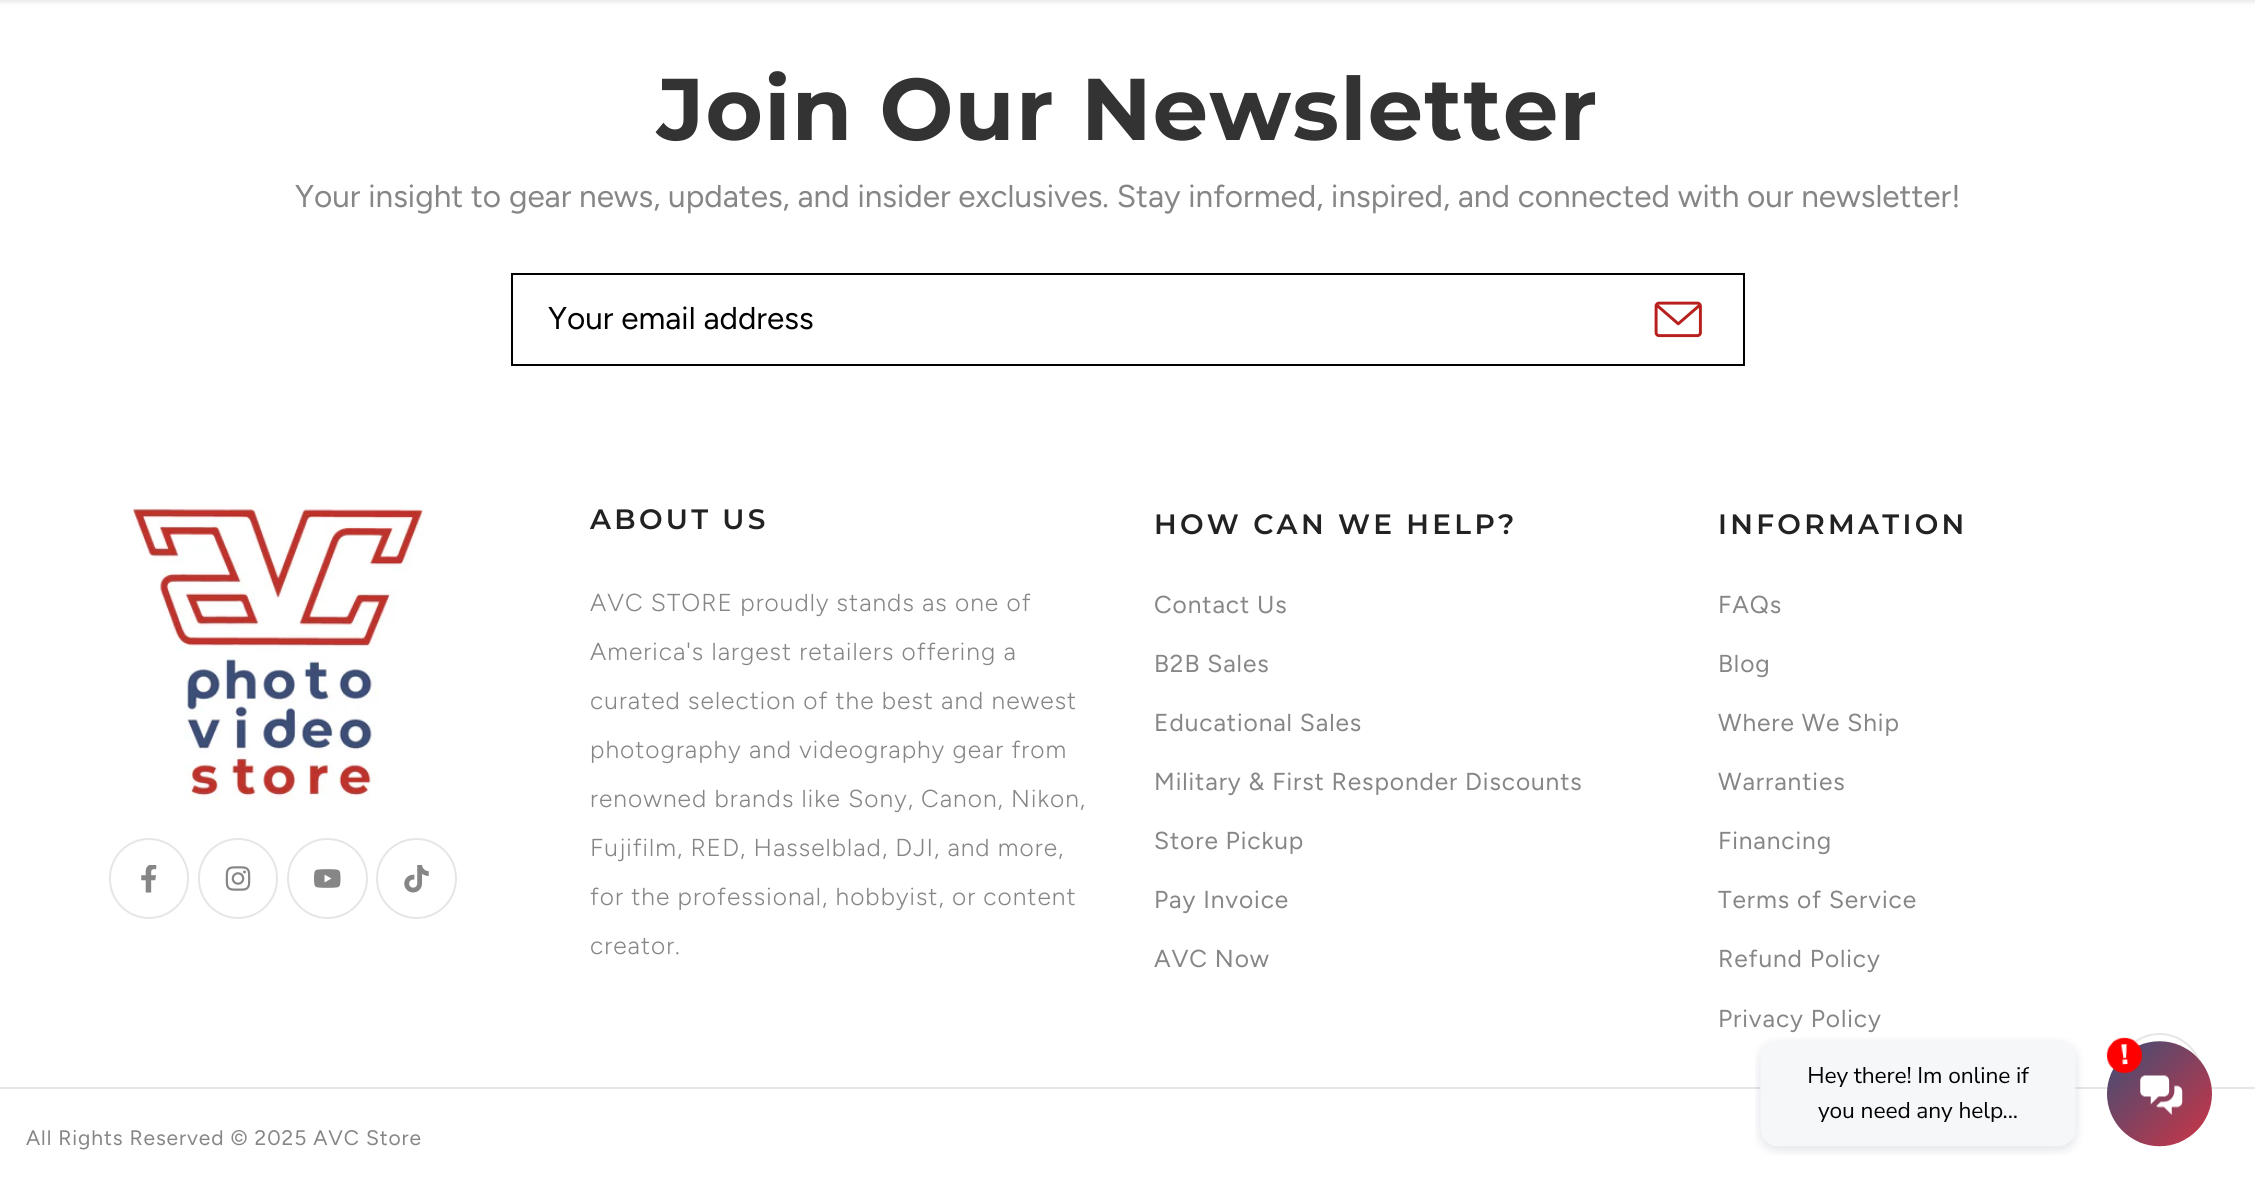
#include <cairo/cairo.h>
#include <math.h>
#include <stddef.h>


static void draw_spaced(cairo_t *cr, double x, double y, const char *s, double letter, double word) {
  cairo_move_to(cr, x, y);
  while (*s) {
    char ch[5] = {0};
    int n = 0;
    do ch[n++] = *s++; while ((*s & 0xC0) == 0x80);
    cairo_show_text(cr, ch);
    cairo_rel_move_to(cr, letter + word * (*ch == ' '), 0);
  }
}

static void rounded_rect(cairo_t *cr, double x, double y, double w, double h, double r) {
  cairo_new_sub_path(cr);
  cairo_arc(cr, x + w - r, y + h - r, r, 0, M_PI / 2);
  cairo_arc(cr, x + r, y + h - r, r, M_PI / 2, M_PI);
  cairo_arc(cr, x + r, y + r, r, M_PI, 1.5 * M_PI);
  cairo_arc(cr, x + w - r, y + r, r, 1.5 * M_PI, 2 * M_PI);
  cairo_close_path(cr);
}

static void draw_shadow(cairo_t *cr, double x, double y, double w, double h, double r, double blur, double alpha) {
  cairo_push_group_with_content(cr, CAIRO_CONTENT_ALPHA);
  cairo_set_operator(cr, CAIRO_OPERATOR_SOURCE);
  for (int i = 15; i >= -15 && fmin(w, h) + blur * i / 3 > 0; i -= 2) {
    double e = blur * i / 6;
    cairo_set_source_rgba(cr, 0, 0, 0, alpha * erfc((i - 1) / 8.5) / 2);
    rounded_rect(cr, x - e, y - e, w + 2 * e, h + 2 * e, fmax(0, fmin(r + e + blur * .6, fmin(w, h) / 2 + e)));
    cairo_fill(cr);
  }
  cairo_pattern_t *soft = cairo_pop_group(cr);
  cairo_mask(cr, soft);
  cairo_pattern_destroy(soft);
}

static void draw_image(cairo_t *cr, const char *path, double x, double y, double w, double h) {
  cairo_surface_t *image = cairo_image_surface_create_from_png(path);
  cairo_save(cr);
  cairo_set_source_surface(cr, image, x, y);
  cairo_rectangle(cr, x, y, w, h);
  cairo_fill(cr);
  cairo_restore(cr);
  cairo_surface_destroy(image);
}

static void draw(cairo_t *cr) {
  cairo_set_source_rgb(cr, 1, 1, 1);
  cairo_paint(cr);
  cairo_set_source_rgb(cr, 0, 0, 0);
  draw_shadow(cr, 0, -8, 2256, 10, 0, 2.5, 0.1);
  cairo_rectangle(cr, 512, 274, 1232, 91);
  cairo_set_source_rgb(cr, 0, 0, 0);
  cairo_stroke(cr);
  draw_image(cr, "images/1.png", 1654, 301, 48, 37);
  draw_image(cr, "images/2.png", 132, 506, 294, 294);
  rounded_rect(cr, 110, 839, 78, 79, 39);
  cairo_set_source_rgb(cr, 230 / 255.0, 230 / 255.0, 230 / 255.0);
  cairo_stroke(cr);
  draw_image(cr, "images/3.png", 141, 865, 16, 28);
  rounded_rect(cr, 199, 839, 78, 79, 39);
  cairo_stroke(cr);
  draw_image(cr, "images/4.png", 225, 866, 26, 25);
  cairo_arc(cr, 327.5, 878.5, 39.5, 0, 2 * M_PI);
  cairo_stroke(cr);
  draw_image(cr, "images/5.png", 314, 869, 27, 19);
  cairo_arc(cr, 416.5, 878.5, 39.5, 0, 2 * M_PI);
  cairo_stroke(cr);
  draw_image(cr, "images/6.png", 404, 865, 25, 28);
  cairo_rectangle(cr, 0, 1087, 2255, 2);
  cairo_fill(cr);
  cairo_set_source_rgb(cr, 1, 1, 1);
  cairo_arc(cr, 2159.5, 1076.5, 42.5, 0, 2 * M_PI);
  cairo_fill_preserve(cr);
  cairo_set_source_rgb(cr, 230 / 255.0, 230 / 255.0, 230 / 255.0);
  cairo_stroke(cr);
  draw_image(cr, "images/7.png", 1755, 1037, 457, 118);
  cairo_select_font_face(cr, "Montserrat", CAIRO_FONT_SLANT_NORMAL, CAIRO_FONT_WEIGHT_BOLD);
  cairo_set_font_size(cr, 87.5);
  cairo_set_source_rgb(cr, 51 / 255.0, 51 / 255.0, 51 / 255.0);
  draw_spaced(cr, 657, 140, "Join Our Newsletter", 1.25, 0);
  cairo_select_font_face(cr, "Figtree", CAIRO_FONT_SLANT_NORMAL, CAIRO_FONT_WEIGHT_NORMAL);
  cairo_set_font_size(cr, 31.5);
  cairo_set_source_rgb(cr, 134 / 255.0, 134 / 255.0, 134 / 255.0);
  cairo_move_to(cr, 295, 207);
  cairo_show_text(cr, "Your insight to gear news, updates, and insider exclusives. Stay informed, inspired, and connected with our newsletter!");
  cairo_set_source_rgb(cr, 0, 0, 0);
  cairo_move_to(cr, 548, 329);
  cairo_show_text(cr, "Your email address");
  cairo_select_font_face(cr, "Montserrat SemiBold", CAIRO_FONT_SLANT_NORMAL, CAIRO_FONT_WEIGHT_NORMAL);
  cairo_set_font_size(cr, 28);
  cairo_set_source_rgb(cr, 34 / 255.0, 34 / 255.0, 34 / 255.0);
  draw_spaced(cr, 590, 529, "ABOUT US", 3.3, 0);
  cairo_select_font_face(cr, "Figtree Light", CAIRO_FONT_SLANT_NORMAL, CAIRO_FONT_WEIGHT_NORMAL);
  cairo_set_font_size(cr, 24.5);
  cairo_set_source_rgb(cr, 134 / 255.0, 134 / 255.0, 134 / 255.0);
  draw_spaced(cr, 590, 611, "AVC STORE proudly stands as one of", 1.05, 0);
  draw_spaced(cr, 590, 660, "America's largest retailers offering a", 1.05, 0);
  draw_spaced(cr, 590, 709, "curated selection of the best and newest", 1.05, 0);
  draw_spaced(cr, 590, 758, "photography and videography gear from", 1.05, 0);
  draw_spaced(cr, 590, 807, "renowned brands like Sony, Canon, Nikon,", 1.05, 0);
  draw_spaced(cr, 590, 856, "Fujifilm, RED, Hasselblad, DJI, and more,", 1.05, 0);
  draw_spaced(cr, 590, 905, "for the professional, hobbyist, or content", 1.05, 0);
  draw_spaced(cr, 590, 954, "creator.", 1.05, 0);
  cairo_select_font_face(cr, "Montserrat SemiBold", CAIRO_FONT_SLANT_NORMAL, CAIRO_FONT_WEIGHT_NORMAL);
  cairo_set_font_size(cr, 28);
  cairo_set_source_rgb(cr, 34 / 255.0, 34 / 255.0, 34 / 255.0);
  draw_spaced(cr, 1154, 534, "HOW CAN WE HELP?", 3.3, 0);
  cairo_select_font_face(cr, "Figtree", CAIRO_FONT_SLANT_NORMAL, CAIRO_FONT_WEIGHT_NORMAL);
  cairo_set_font_size(cr, 24.5);
  cairo_set_source_rgb(cr, 134 / 255.0, 134 / 255.0, 134 / 255.0);
  draw_spaced(cr, 1154, 613, "Contact Us", 0.9, 0);
  draw_spaced(cr, 1154, 672, "B2B Sales", 0.9, 0);
  draw_spaced(cr, 1154, 731, "Educational Sales", 0.9, 0);
  draw_spaced(cr, 1154, 790, "Military & First Responder Discounts", 0.9, 0);
  draw_spaced(cr, 1154, 849, "Store Pickup", 0.9, 0);
  draw_spaced(cr, 1154, 908, "Pay Invoice", 0.9, 0);
  draw_spaced(cr, 1154, 967, "AVC Now", 0.9, 0);
  cairo_select_font_face(cr, "Montserrat SemiBold", CAIRO_FONT_SLANT_NORMAL, CAIRO_FONT_WEIGHT_NORMAL);
  cairo_set_font_size(cr, 28);
  cairo_set_source_rgb(cr, 34 / 255.0, 34 / 255.0, 34 / 255.0);
  draw_spaced(cr, 1718, 534, "INFORMATION", 3.3, 0);
  cairo_select_font_face(cr, "Figtree", CAIRO_FONT_SLANT_NORMAL, CAIRO_FONT_WEIGHT_NORMAL);
  cairo_set_font_size(cr, 24.5);
  cairo_set_source_rgb(cr, 134 / 255.0, 134 / 255.0, 134 / 255.0);
  draw_spaced(cr, 1718, 613, "FAQs", 0.9, 0);
  draw_spaced(cr, 1718, 672, "Blog", 0.9, 0);
  draw_spaced(cr, 1718, 731, "Where We Ship", 0.9, 0);
  draw_spaced(cr, 1718, 790, "Warranties", 0.9, 0);
  draw_spaced(cr, 1718, 849, "Financing", 0.9, 0);
  draw_spaced(cr, 1718, 908, "Terms of Service", 0.9, 0);
  draw_spaced(cr, 1718, 967, "Refund Policy", 0.9, 0);
  draw_spaced(cr, 1718, 1027, "Privacy Policy", 0.9, 0);
  cairo_set_font_size(cr, 21);
  draw_spaced(cr, 26, 1145, "All Rights Reserved © 2025 AVC Store", 0.9, 0);
}

int main(void) {
  cairo_surface_t *surface = cairo_image_surface_create(CAIRO_FORMAT_RGB24, 2255, 1190);
  cairo_t *cr = cairo_create(surface);
  cairo_font_options_t *options = cairo_font_options_create();
  cairo_font_options_set_hint_metrics(options, CAIRO_HINT_METRICS_OFF);
  cairo_font_options_set_hint_style(options, CAIRO_HINT_STYLE_NONE);
  cairo_set_font_options(cr, options);
  cairo_set_miter_limit(cr, 4);
  draw(cr);
  cairo_surface_write_to_png(surface, "out.png");
  cairo_font_options_destroy(options);
  cairo_destroy(cr);
  cairo_surface_destroy(surface);
  return 0;
}
